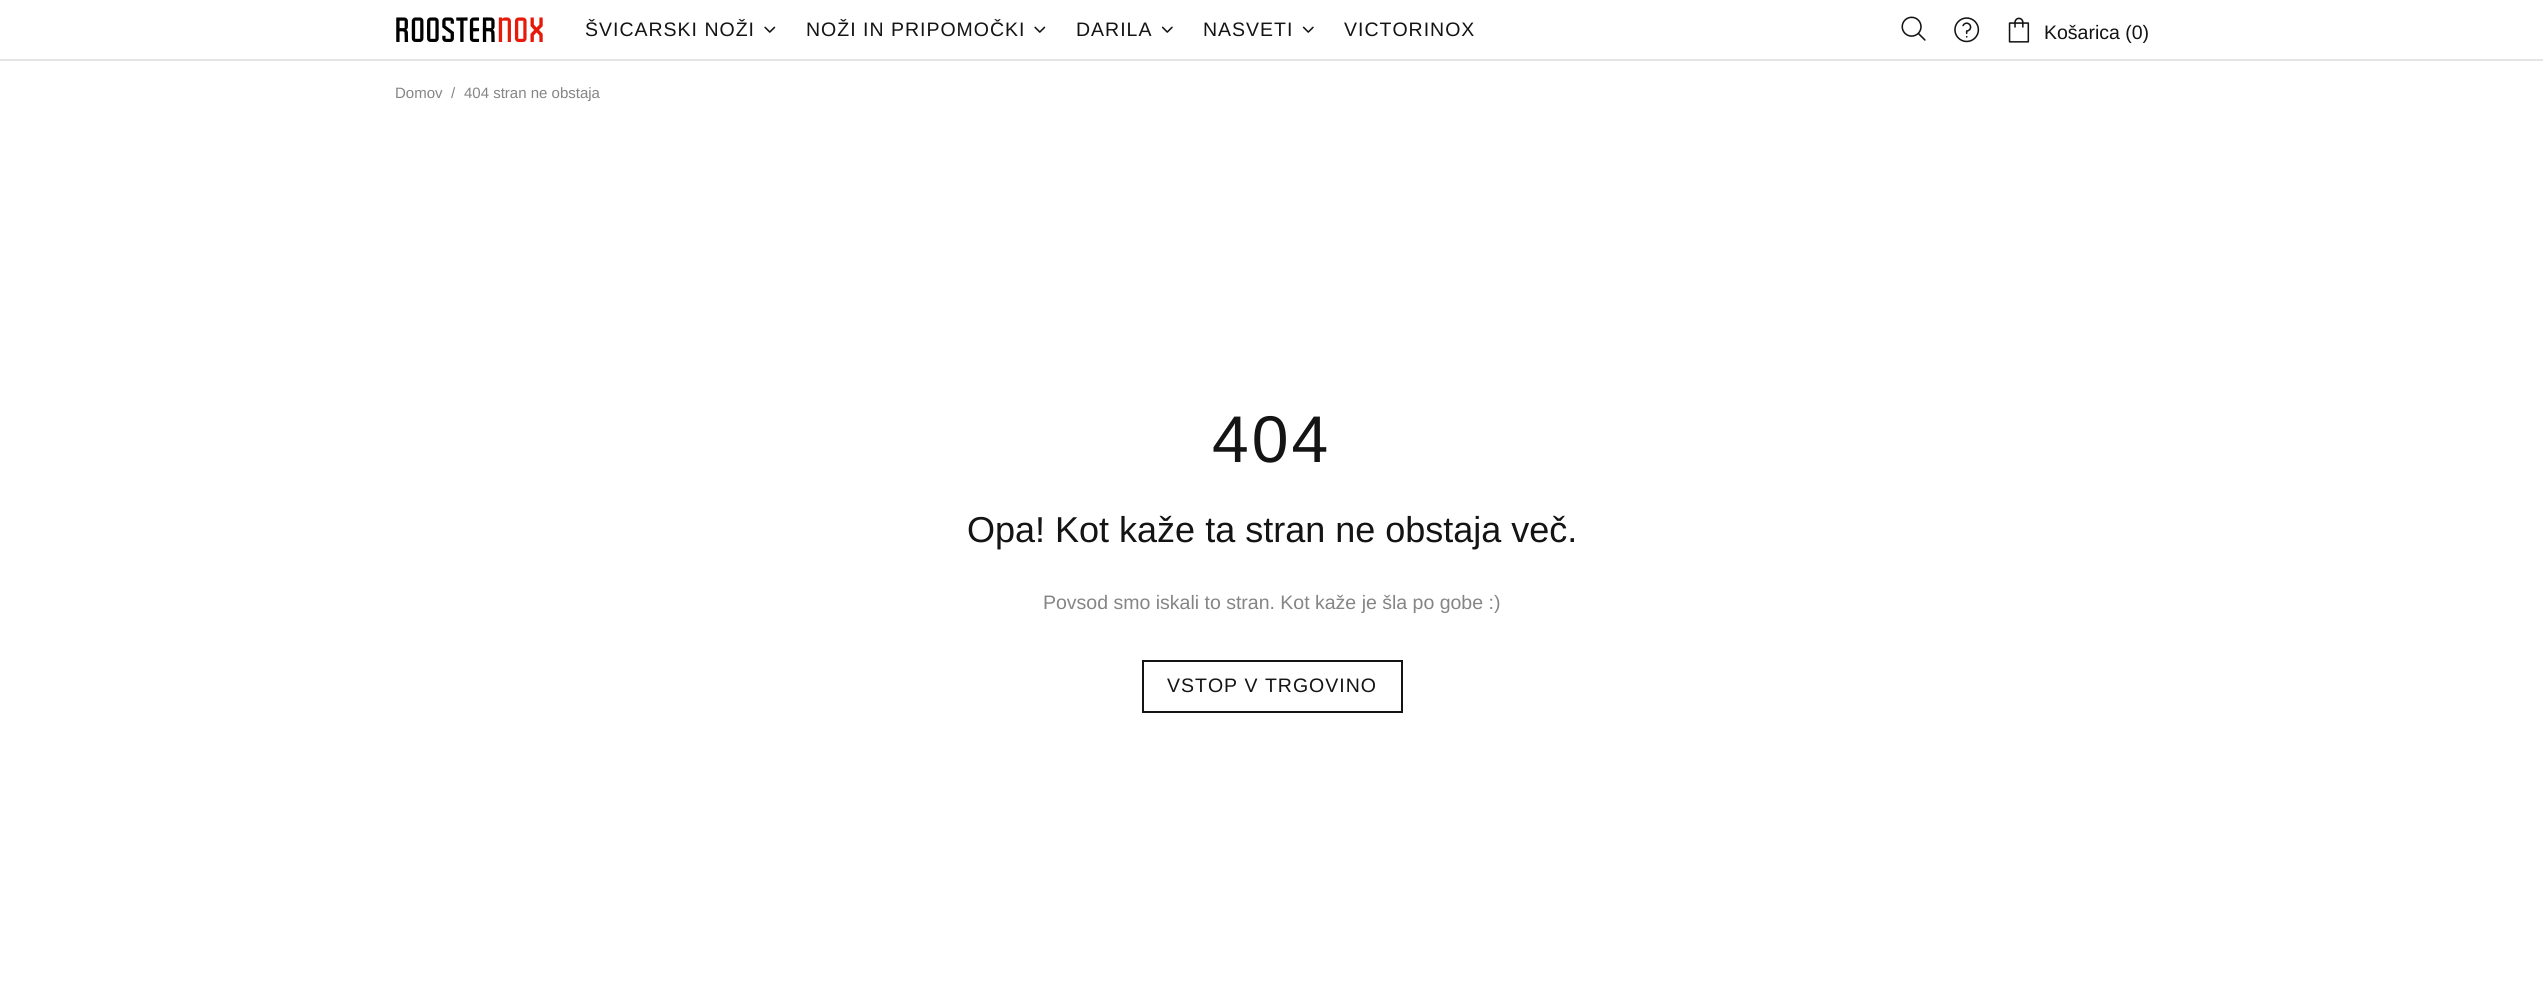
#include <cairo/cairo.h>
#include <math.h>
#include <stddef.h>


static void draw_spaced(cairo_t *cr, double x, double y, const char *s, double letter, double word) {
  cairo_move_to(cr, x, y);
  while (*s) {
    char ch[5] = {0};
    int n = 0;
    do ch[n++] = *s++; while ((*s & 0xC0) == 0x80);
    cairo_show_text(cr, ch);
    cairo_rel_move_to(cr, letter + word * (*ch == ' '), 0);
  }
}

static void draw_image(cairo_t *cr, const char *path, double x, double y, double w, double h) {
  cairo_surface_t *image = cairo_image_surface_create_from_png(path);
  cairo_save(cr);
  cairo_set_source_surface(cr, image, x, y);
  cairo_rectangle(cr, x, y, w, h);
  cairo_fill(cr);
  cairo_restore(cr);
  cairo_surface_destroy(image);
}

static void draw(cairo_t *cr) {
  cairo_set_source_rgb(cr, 1, 1, 1);
  cairo_paint(cr);
  cairo_set_source_rgb(cr, 229 / 255.0, 229 / 255.0, 229 / 255.0);
  cairo_rectangle(cr, 0, 59, 2543, 2);
  cairo_fill(cr);
  draw_image(cr, "images/1.png", 396, 17, 147, 26);
  draw_image(cr, "images/2.png", 764, 26, 12, 7);
  draw_image(cr, "images/2.png", 1034, 26, 12, 7);
  draw_image(cr, "images/3.png", 1161, 26, 12, 7);
  draw_image(cr, "images/3.png", 1302, 26, 12, 7);
  draw_image(cr, "images/4.png", 1901, 16, 25, 25);
  draw_image(cr, "images/5.png", 1954, 17, 26, 26);
  draw_image(cr, "images/6.png", 2008, 17, 22, 26);
  cairo_rectangle(cr, 1143, 661, 259, 51);
  cairo_set_source_rgb(cr, 20 / 255.0, 20 / 255.0, 20 / 255.0);
  cairo_stroke(cr);
  cairo_select_font_face(cr, "Arimo", CAIRO_FONT_SLANT_NORMAL, CAIRO_FONT_WEIGHT_NORMAL);
  cairo_set_font_size(cr, 19.5);
  draw_spaced(cr, 585, 36, "ŠVICARSKI NOŽI", 1, 0);
  draw_spaced(cr, 806, 36, "NOŽI IN PRIPOMOČKI", 1, 0);
  draw_spaced(cr, 1076, 36, "DARILA", 1, 0);
  draw_spaced(cr, 1203, 36, "NASVETI", 1, 0);
  draw_spaced(cr, 1344, 36, "VICTORINOX", 1, 0);
  cairo_move_to(cr, 2044, 39);
  cairo_show_text(cr, "Košarica (0)");
  cairo_set_font_size(cr, 15);
  cairo_set_source_rgb(cr, 133 / 255.0, 133 / 255.0, 133 / 255.0);
  cairo_move_to(cr, 395, 98);
  cairo_show_text(cr, "Domov");
  cairo_move_to(cr, 451, 98);
  cairo_show_text(cr, "/");
  cairo_move_to(cr, 464, 98);
  cairo_show_text(cr, "404 stran ne obstaja");
  cairo_set_font_size(cr, 66);
  cairo_set_source_rgb(cr, 20 / 255.0, 20 / 255.0, 20 / 255.0);
  draw_spaced(cr, 1212, 462, "404", 3, 0);
  cairo_set_font_size(cr, 36);
  cairo_move_to(cr, 967, 542);
  cairo_show_text(cr, "Opa! Kot kaže ta stran ne obstaja več.");
  cairo_set_font_size(cr, 19.5);
  cairo_set_source_rgb(cr, 133 / 255.0, 133 / 255.0, 133 / 255.0);
  cairo_move_to(cr, 1043, 609);
  cairo_show_text(cr, "Povsod smo iskali to stran. Kot kaže je šla po gobe :)");
  cairo_set_source_rgb(cr, 20 / 255.0, 20 / 255.0, 20 / 255.0);
  draw_spaced(cr, 1167, 692, "VSTOP V TRGOVINO", 1, 0);
}

int main(void) {
  cairo_surface_t *surface = cairo_image_surface_create(CAIRO_FORMAT_RGB24, 2543, 989);
  cairo_t *cr = cairo_create(surface);
  cairo_font_options_t *options = cairo_font_options_create();
  cairo_font_options_set_hint_metrics(options, CAIRO_HINT_METRICS_OFF);
  cairo_font_options_set_hint_style(options, CAIRO_HINT_STYLE_NONE);
  cairo_set_font_options(cr, options);
  cairo_set_miter_limit(cr, 4);
  draw(cr);
  cairo_surface_write_to_png(surface, "out.png");
  cairo_font_options_destroy(options);
  cairo_destroy(cr);
  cairo_surface_destroy(surface);
  return 0;
}
